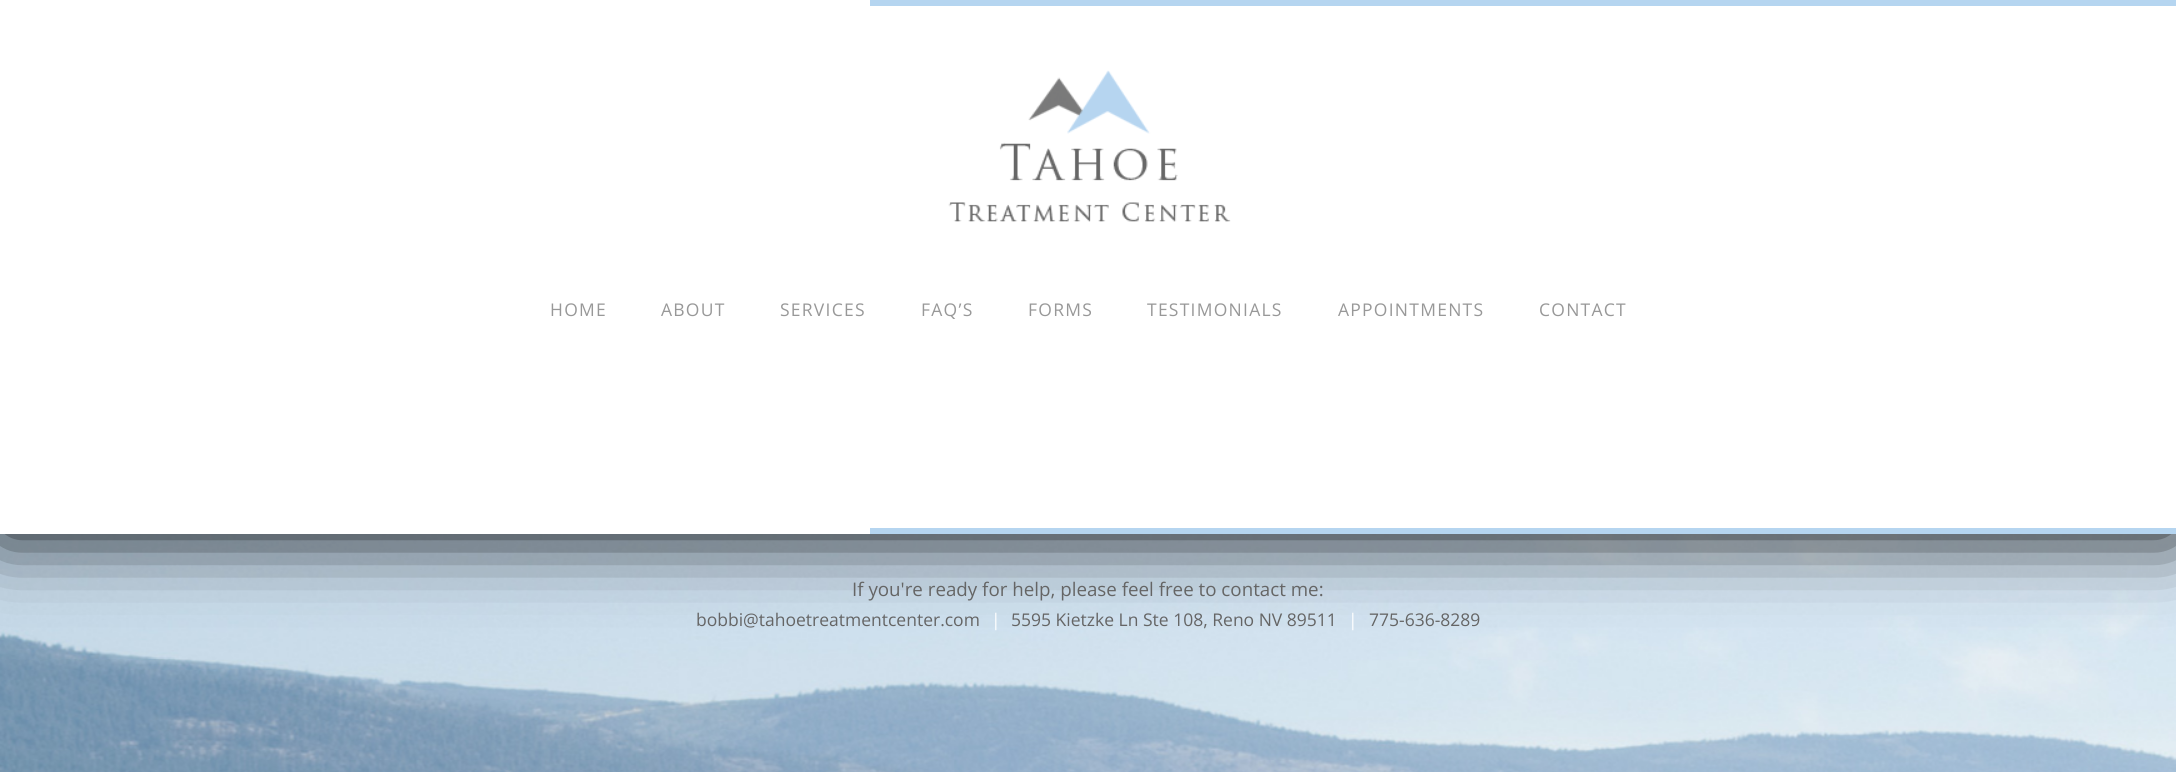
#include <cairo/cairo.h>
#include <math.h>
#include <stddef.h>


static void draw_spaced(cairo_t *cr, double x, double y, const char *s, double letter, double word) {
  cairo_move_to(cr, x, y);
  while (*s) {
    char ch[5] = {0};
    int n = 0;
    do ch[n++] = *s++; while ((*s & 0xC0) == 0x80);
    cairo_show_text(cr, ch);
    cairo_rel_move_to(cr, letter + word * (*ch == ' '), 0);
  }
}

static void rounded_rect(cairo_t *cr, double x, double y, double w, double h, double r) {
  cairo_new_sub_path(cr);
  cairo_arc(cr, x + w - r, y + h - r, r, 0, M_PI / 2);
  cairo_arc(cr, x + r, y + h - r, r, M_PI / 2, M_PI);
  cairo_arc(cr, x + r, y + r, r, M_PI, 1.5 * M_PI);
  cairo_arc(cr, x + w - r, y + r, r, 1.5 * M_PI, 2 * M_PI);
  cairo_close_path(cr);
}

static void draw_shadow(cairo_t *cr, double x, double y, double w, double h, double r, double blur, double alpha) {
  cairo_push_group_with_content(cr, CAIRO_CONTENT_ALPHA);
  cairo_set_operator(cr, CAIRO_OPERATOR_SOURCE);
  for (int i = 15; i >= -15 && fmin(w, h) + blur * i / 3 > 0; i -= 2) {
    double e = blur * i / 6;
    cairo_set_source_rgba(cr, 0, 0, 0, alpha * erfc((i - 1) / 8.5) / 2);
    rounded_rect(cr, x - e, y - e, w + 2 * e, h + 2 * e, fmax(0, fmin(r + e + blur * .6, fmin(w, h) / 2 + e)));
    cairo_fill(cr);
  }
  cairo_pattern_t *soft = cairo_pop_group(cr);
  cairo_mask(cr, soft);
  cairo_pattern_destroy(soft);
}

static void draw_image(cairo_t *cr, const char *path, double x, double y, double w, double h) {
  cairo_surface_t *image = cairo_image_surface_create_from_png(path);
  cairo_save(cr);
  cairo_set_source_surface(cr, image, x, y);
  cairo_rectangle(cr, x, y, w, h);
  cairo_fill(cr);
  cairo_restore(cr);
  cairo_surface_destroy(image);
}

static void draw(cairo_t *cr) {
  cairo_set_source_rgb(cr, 1, 1, 1);
  cairo_paint(cr);
  draw_image(cr, "images/2.png", 0, 534, 2176, 238);
  cairo_set_source_rgb(cr, 0, 0, 0);
  draw_shadow(cr, 0, 0, 2176, 534, 0, 37.5, 1);
  cairo_set_source_rgb(cr, 1, 1, 1);
  cairo_rectangle(cr, 0, 0, 2176, 534);
  cairo_fill(cr);
  cairo_set_source_rgb(cr, 181 / 255.0, 213 / 255.0, 240 / 255.0);
  cairo_rectangle(cr, 870, 0, 1306, 6);
  cairo_fill(cr);
  draw_image(cr, "images/1.png", 948, 70, 283, 152);
  cairo_rectangle(cr, 870, 528, 1306, 6);
  cairo_fill(cr);
  cairo_select_font_face(cr, "Open Sans", CAIRO_FONT_SLANT_NORMAL, CAIRO_FONT_WEIGHT_NORMAL);
  cairo_set_font_size(cr, 17.5);
  cairo_set_source_rgb(cr, 152 / 255.0, 152 / 255.0, 152 / 255.0);
  draw_spaced(cr, 550, 316, "HOME", 1.25, 0);
  draw_spaced(cr, 661, 316, "ABOUT", 1.25, 0);
  draw_spaced(cr, 780, 316, "SERVICES", 1.25, 0);
  draw_spaced(cr, 921, 316, "FAQ’S", 1.25, 0);
  draw_spaced(cr, 1028, 316, "FORMS", 1.25, 0);
  draw_spaced(cr, 1147, 316, "TESTIMONIALS", 1.25, 0);
  draw_spaced(cr, 1338, 316, "APPOINTMENTS", 1.25, 0);
  draw_spaced(cr, 1539, 316, "CONTACT", 1.25, 0);
  cairo_set_font_size(cr, 18.75);
  cairo_set_source_rgb(cr, 101 / 255.0, 101 / 255.0, 101 / 255.0);
  cairo_move_to(cr, 852, 596);
  cairo_show_text(cr, "If you're ready for help, please feel free to contact me:");
  cairo_set_font_size(cr, 17.5);
  cairo_move_to(cr, 696, 626);
  cairo_show_text(cr, "bobbi@tahoetreatmentcenter.com");
  cairo_set_source_rgb(cr, 1, 1, 1);
  cairo_move_to(cr, 991, 626);
  cairo_show_text(cr, "|");
  cairo_set_source_rgb(cr, 101 / 255.0, 101 / 255.0, 101 / 255.0);
  cairo_move_to(cr, 1011, 626);
  cairo_show_text(cr, "5595 Kietzke Ln Ste 108, Reno NV 89511");
  cairo_set_source_rgb(cr, 1, 1, 1);
  cairo_move_to(cr, 1348, 626);
  cairo_show_text(cr, "|");
  cairo_set_source_rgb(cr, 101 / 255.0, 101 / 255.0, 101 / 255.0);
  cairo_move_to(cr, 1369, 626);
  cairo_show_text(cr, "775-636-8289");
}

int main(void) {
  cairo_surface_t *surface = cairo_image_surface_create(CAIRO_FORMAT_RGB24, 2176, 772);
  cairo_t *cr = cairo_create(surface);
  cairo_font_options_t *options = cairo_font_options_create();
  cairo_font_options_set_hint_metrics(options, CAIRO_HINT_METRICS_OFF);
  cairo_font_options_set_hint_style(options, CAIRO_HINT_STYLE_NONE);
  cairo_set_font_options(cr, options);
  cairo_set_miter_limit(cr, 4);
  draw(cr);
  cairo_surface_write_to_png(surface, "out.png");
  cairo_font_options_destroy(options);
  cairo_destroy(cr);
  cairo_surface_destroy(surface);
  return 0;
}
